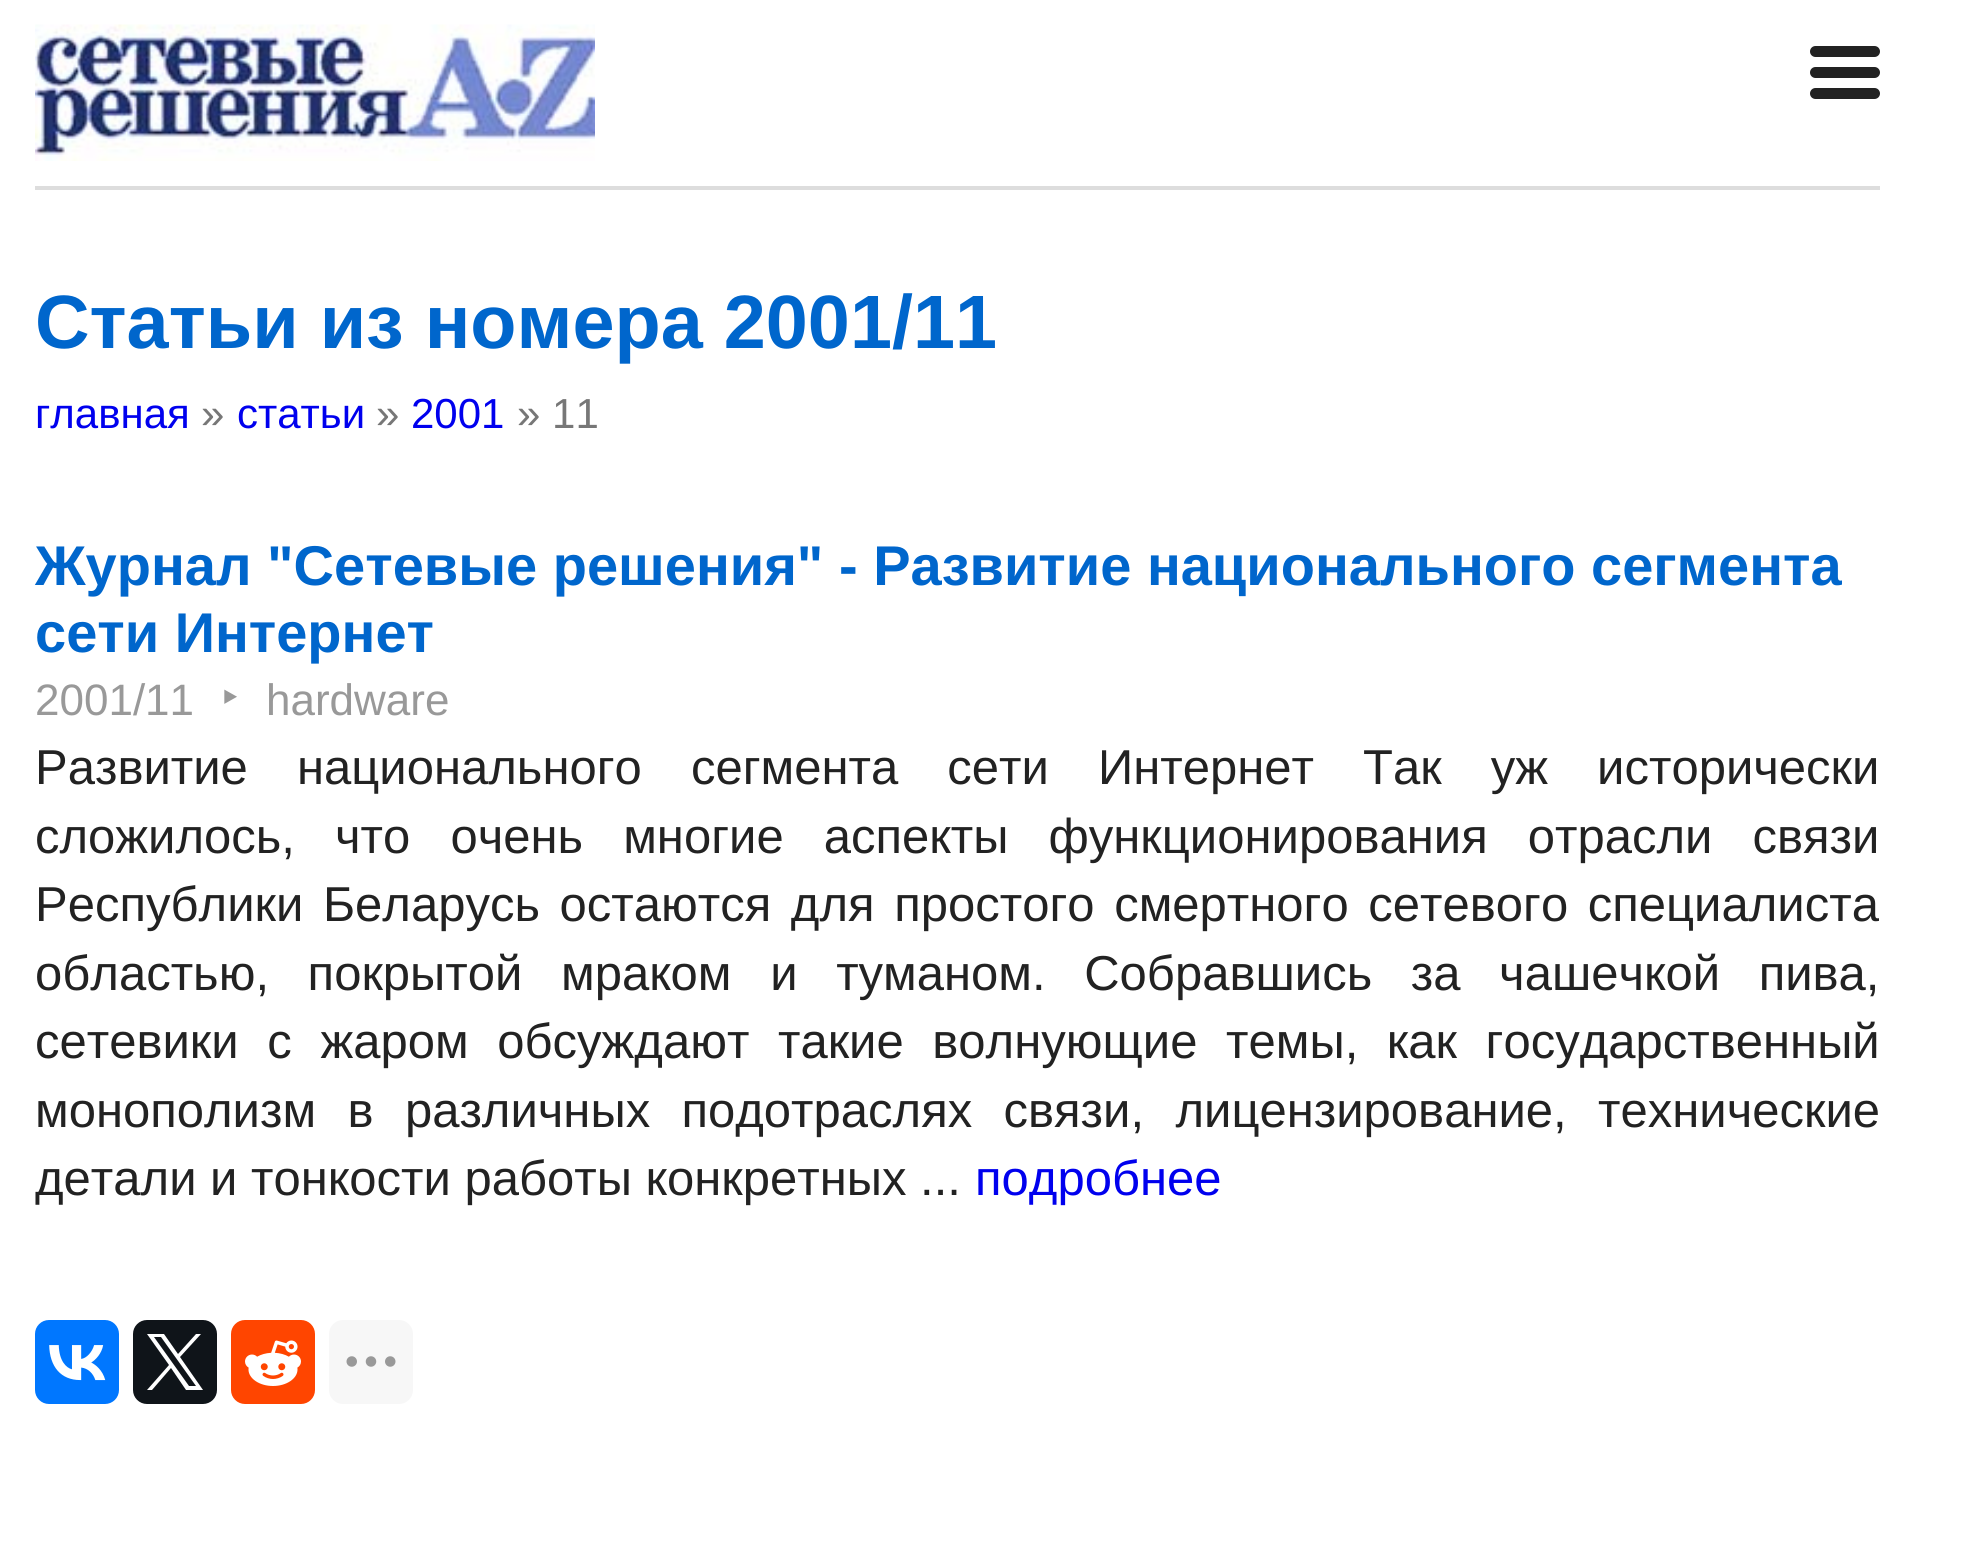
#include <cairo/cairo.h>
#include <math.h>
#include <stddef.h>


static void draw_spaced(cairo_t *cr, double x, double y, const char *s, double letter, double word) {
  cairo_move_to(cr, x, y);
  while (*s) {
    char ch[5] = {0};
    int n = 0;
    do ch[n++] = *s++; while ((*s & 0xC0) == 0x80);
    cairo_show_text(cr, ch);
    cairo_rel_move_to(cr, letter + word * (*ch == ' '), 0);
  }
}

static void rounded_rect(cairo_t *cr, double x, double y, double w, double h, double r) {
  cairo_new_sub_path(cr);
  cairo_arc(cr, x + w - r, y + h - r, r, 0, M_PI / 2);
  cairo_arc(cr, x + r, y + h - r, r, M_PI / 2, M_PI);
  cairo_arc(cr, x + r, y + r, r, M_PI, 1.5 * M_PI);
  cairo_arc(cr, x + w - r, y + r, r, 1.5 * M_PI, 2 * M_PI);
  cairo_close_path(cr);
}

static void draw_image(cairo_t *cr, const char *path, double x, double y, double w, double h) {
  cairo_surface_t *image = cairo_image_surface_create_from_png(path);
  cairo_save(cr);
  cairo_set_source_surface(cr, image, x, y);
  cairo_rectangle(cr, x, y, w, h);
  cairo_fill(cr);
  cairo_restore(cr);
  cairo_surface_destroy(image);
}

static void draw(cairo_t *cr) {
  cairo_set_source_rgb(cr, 1, 1, 1);
  cairo_paint(cr);
  cairo_set_source_rgb(cr, 221 / 255.0, 221 / 255.0, 221 / 255.0);
  cairo_rectangle(cr, 35, 186, 1845, 4);
  cairo_fill(cr);
  draw_image(cr, "images/1.png", 35, 24, 560, 137);
  cairo_set_source_rgb(cr, 34 / 255.0, 34 / 255.0, 34 / 255.0);
  rounded_rect(cr, 1810, 46, 70, 11, 5.5);
  cairo_fill(cr);
  rounded_rect(cr, 1810, 67, 70, 11, 5.5);
  cairo_fill(cr);
  rounded_rect(cr, 1810, 88, 70, 11, 5.5);
  cairo_fill(cr);
  cairo_set_source_rgb(cr, 0, 119 / 255.0, 1);
  rounded_rect(cr, 35, 1320, 84, 84, 14);
  cairo_fill(cr);
  draw_image(cr, "images/2.png", 49, 1345, 57, 36);
  cairo_set_source_rgb(cr, 15 / 255.0, 20 / 255.0, 25 / 255.0);
  rounded_rect(cr, 133, 1320, 84, 84, 14);
  cairo_fill(cr);
  cairo_set_source_rgb(cr, 1, 1, 1);
  cairo_new_path(cr);
  cairo_move_to(cr, 180, 1357);
  cairo_line_to(cr, 201, 1334);
  cairo_line_to(cr, 196, 1334);
  cairo_line_to(cr, 178, 1354);
  cairo_line_to(cr, 164, 1334);
  cairo_line_to(cr, 147, 1334);
  cairo_line_to(cr, 169, 1365);
  cairo_line_to(cr, 147, 1390);
  cairo_line_to(cr, 152, 1390);
  cairo_line_to(cr, 171, 1368);
  cairo_line_to(cr, 186, 1390);
  cairo_line_to(cr, 203, 1390);
  cairo_close_path(cr);
  cairo_move_to(cr, 174, 1365);
  cairo_line_to(cr, 154, 1337);
  cairo_line_to(cr, 161, 1337);
  cairo_line_to(cr, 196, 1386);
  cairo_line_to(cr, 189, 1386);
  cairo_close_path(cr);
  cairo_fill(cr);
  cairo_set_source_rgb(cr, 1, 69 / 255.0, 0);
  rounded_rect(cr, 231, 1320, 84, 84, 14);
  cairo_fill(cr);
  draw_image(cr, "images/3.png", 245, 1340, 56, 46);
  cairo_set_source_rgb(cr, 247 / 255.0, 247 / 255.0, 247 / 255.0);
  rounded_rect(cr, 329, 1320, 84, 84, 14);
  cairo_fill(cr);
  draw_image(cr, "images/4.png", 346, 1356, 50, 11);
  cairo_select_font_face(cr, "Liberation Sans", CAIRO_FONT_SLANT_NORMAL, CAIRO_FONT_WEIGHT_BOLD);
  cairo_set_font_size(cr, 75.6);
  cairo_set_source_rgb(cr, 0, 102 / 255.0, 204 / 255.0);
  cairo_move_to(cr, 35, 348);
  cairo_show_text(cr, "Статьи из номера 2001/11");
  cairo_select_font_face(cr, "Liberation Sans", CAIRO_FONT_SLANT_NORMAL, CAIRO_FONT_WEIGHT_NORMAL);
  cairo_set_font_size(cr, 42);
  cairo_set_source_rgb(cr, 0, 0, 238 / 255.0);
  cairo_move_to(cr, 35, 428);
  cairo_show_text(cr, "главная");
  cairo_set_source_rgb(cr, 119 / 255.0, 119 / 255.0, 119 / 255.0);
  cairo_move_to(cr, 201, 428);
  cairo_show_text(cr, "»");
  cairo_set_source_rgb(cr, 0, 0, 238 / 255.0);
  cairo_move_to(cr, 237, 428);
  cairo_show_text(cr, "статьи");
  cairo_set_source_rgb(cr, 119 / 255.0, 119 / 255.0, 119 / 255.0);
  cairo_move_to(cr, 376, 428);
  cairo_show_text(cr, "»");
  cairo_set_source_rgb(cr, 0, 0, 238 / 255.0);
  cairo_move_to(cr, 411, 428);
  cairo_show_text(cr, "2001");
  cairo_set_source_rgb(cr, 119 / 255.0, 119 / 255.0, 119 / 255.0);
  cairo_move_to(cr, 517, 428);
  cairo_show_text(cr, "» 11");
  cairo_select_font_face(cr, "Liberation Sans", CAIRO_FONT_SLANT_NORMAL, CAIRO_FONT_WEIGHT_BOLD);
  cairo_set_font_size(cr, 56);
  cairo_set_source_rgb(cr, 0, 102 / 255.0, 204 / 255.0);
  cairo_move_to(cr, 35, 585);
  cairo_show_text(cr, "Журнал \"Сетевые решения\" - Развитие национального сегмента");
  cairo_move_to(cr, 35, 652);
  cairo_show_text(cr, "сети Интернет");
  cairo_select_font_face(cr, "Liberation Sans", CAIRO_FONT_SLANT_NORMAL, CAIRO_FONT_WEIGHT_NORMAL);
  cairo_set_font_size(cr, 44);
  cairo_set_source_rgb(cr, 153 / 255.0, 153 / 255.0, 153 / 255.0);
  cairo_move_to(cr, 35, 715);
  cairo_show_text(cr, "2001/11");
  cairo_select_font_face(cr, "Noto Sans", CAIRO_FONT_SLANT_NORMAL, CAIRO_FONT_WEIGHT_NORMAL);
  cairo_set_font_size(cr, 49);
  cairo_move_to(cr, 221, 715);
  cairo_show_text(cr, "‣");
  cairo_select_font_face(cr, "Liberation Sans", CAIRO_FONT_SLANT_NORMAL, CAIRO_FONT_WEIGHT_NORMAL);
  cairo_set_font_size(cr, 44);
  cairo_move_to(cr, 266, 715);
  cairo_show_text(cr, "hardware");
  cairo_set_font_size(cr, 49);
  cairo_set_source_rgb(cr, 34 / 255.0, 34 / 255.0, 34 / 255.0);
  draw_spaced(cr, 35, 784, "Развитие национального сегмента сети Интернет", 0, 35.5);
  draw_spaced(cr, 1363, 784, "Так уж исторически", 0, 35.5);
  draw_spaced(cr, 35, 853, "сложилось, что очень многие аспекты функционирования отрасли связи", 0, 26.5);
  draw_spaced(cr, 35, 921, "Республики Беларусь остаются для простого смертного сетевого специалиста", 0, 6);
  draw_spaced(cr, 35, 990, "областью, покрытой мраком и туманом. Собравшись за чашечкой пива,", 0, 25);
  draw_spaced(cr, 35, 1058, "сетевики с жаром обсуждают такие волнующие темы, как государственный", 0, 15);
  draw_spaced(cr, 35, 1127, "монополизм в различных подотраслях связи, лицензирование, технические", 0, 17.75);
  cairo_move_to(cr, 35, 1195);
  cairo_show_text(cr, "детали и тонкости работы конкретных ...");
  cairo_set_source_rgb(cr, 0, 0, 238 / 255.0);
  cairo_move_to(cr, 975, 1195);
  cairo_show_text(cr, "подробнее");
}

int main(void) {
  cairo_surface_t *surface = cairo_image_surface_create(CAIRO_FORMAT_RGB24, 1964, 1559);
  cairo_t *cr = cairo_create(surface);
  cairo_font_options_t *options = cairo_font_options_create();
  cairo_font_options_set_hint_metrics(options, CAIRO_HINT_METRICS_OFF);
  cairo_font_options_set_hint_style(options, CAIRO_HINT_STYLE_NONE);
  cairo_set_font_options(cr, options);
  cairo_set_miter_limit(cr, 4);
  draw(cr);
  cairo_surface_write_to_png(surface, "out.png");
  cairo_font_options_destroy(options);
  cairo_destroy(cr);
  cairo_surface_destroy(surface);
  return 0;
}
